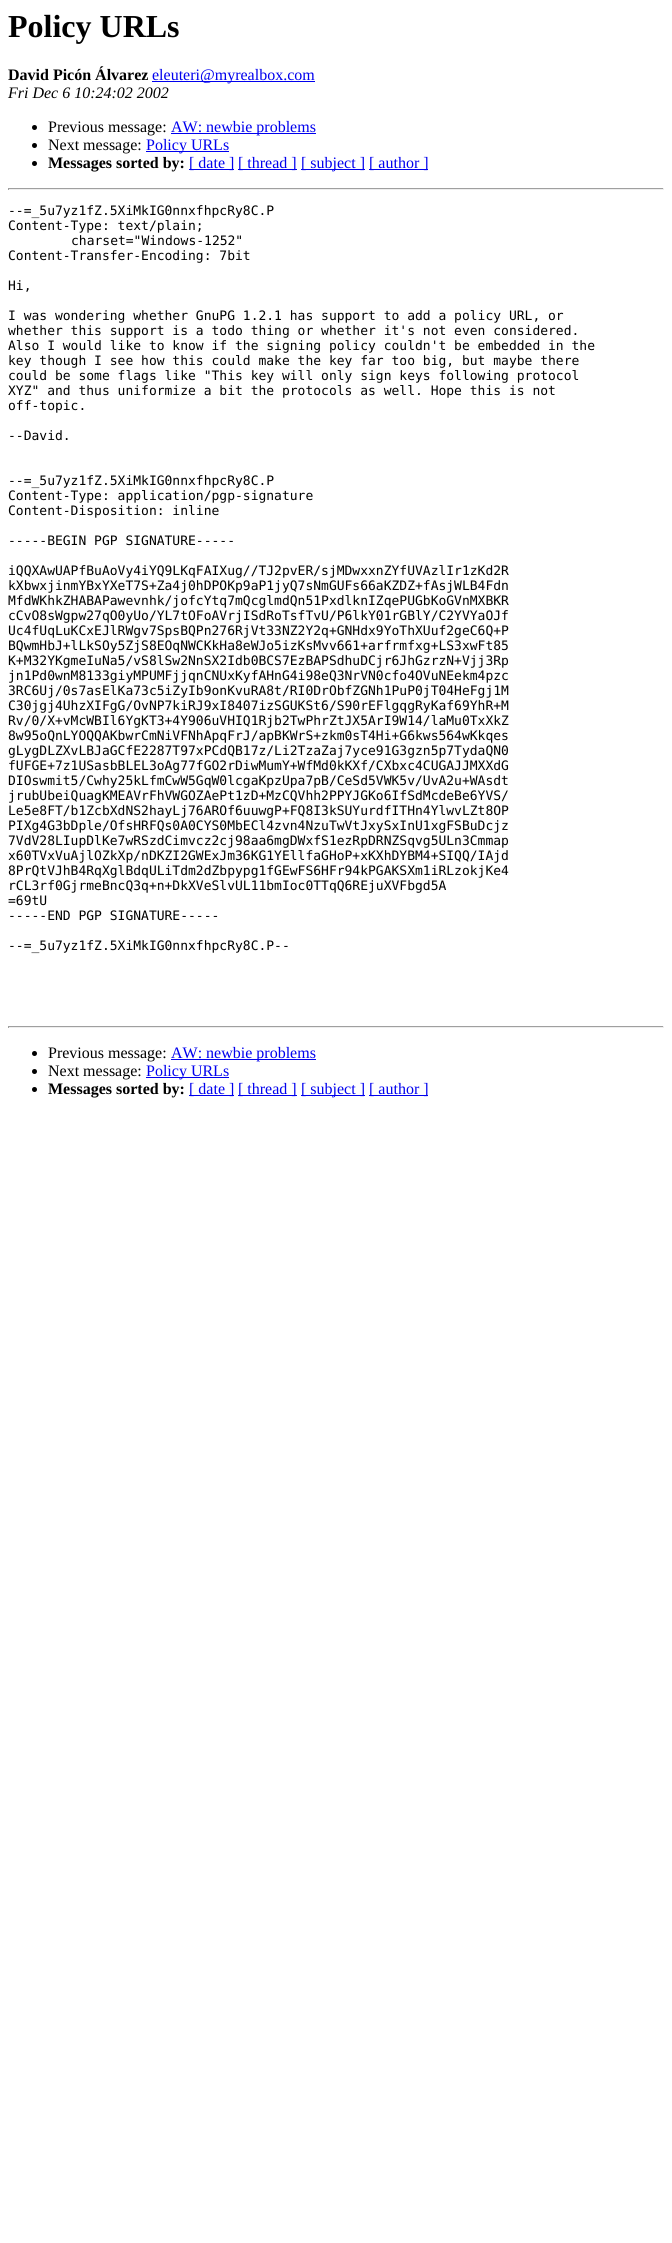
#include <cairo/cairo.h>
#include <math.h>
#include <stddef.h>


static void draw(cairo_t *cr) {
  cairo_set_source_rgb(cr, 1, 1, 1);
  cairo_paint(cr);
  cairo_set_source_rgb(cr, 0, 0, 238 / 255.0);
  cairo_rectangle(cr, 152, 81, 163, 1);
  cairo_fill(cr);
  cairo_set_source_rgb(cr, 0, 0, 0);
  cairo_arc(cr, 34.5, 127.5, 2.5, 0, 2 * M_PI);
  cairo_fill(cr);
  cairo_set_source_rgb(cr, 0, 0, 238 / 255.0);
  cairo_rectangle(cr, 171, 133, 145, 1);
  cairo_fill(cr);
  cairo_set_source_rgb(cr, 0, 0, 0);
  cairo_arc(cr, 34.5, 145.5, 2.5, 0, 2 * M_PI);
  cairo_fill(cr);
  cairo_set_source_rgb(cr, 0, 0, 238 / 255.0);
  cairo_rectangle(cr, 146, 151, 83, 1);
  cairo_fill(cr);
  cairo_set_source_rgb(cr, 0, 0, 0);
  cairo_arc(cr, 34.5, 163.5, 2.5, 0, 2 * M_PI);
  cairo_fill(cr);
  cairo_set_source_rgb(cr, 0, 0, 238 / 255.0);
  cairo_rectangle(cr, 189, 169, 45, 1);
  cairo_fill(cr);
  cairo_rectangle(cr, 238, 169, 59, 1);
  cairo_fill(cr);
  cairo_rectangle(cr, 301, 169, 64, 1);
  cairo_fill(cr);
  cairo_rectangle(cr, 369, 169, 59, 1);
  cairo_fill(cr);
  cairo_set_source_rgb(cr, 159 / 255.0, 159 / 255.0, 159 / 255.0);
  cairo_rectangle(cr, 8, 188, 656, 1);
  cairo_fill(cr);
  cairo_set_source_rgb(cr, 238 / 255.0, 238 / 255.0, 238 / 255.0);
  cairo_rectangle(cr, 663, 188, 1, 2);
  cairo_fill(cr);
  cairo_rectangle(cr, 8, 189, 656, 1);
  cairo_fill(cr);
  cairo_set_source_rgb(cr, 159 / 255.0, 159 / 255.0, 159 / 255.0);
  cairo_rectangle(cr, 8, 188, 1, 2);
  cairo_fill(cr);
  cairo_rectangle(cr, 8, 1026, 656, 1);
  cairo_fill(cr);
  cairo_set_source_rgb(cr, 238 / 255.0, 238 / 255.0, 238 / 255.0);
  cairo_rectangle(cr, 663, 1026, 1, 2);
  cairo_fill(cr);
  cairo_rectangle(cr, 8, 1027, 656, 1);
  cairo_fill(cr);
  cairo_set_source_rgb(cr, 159 / 255.0, 159 / 255.0, 159 / 255.0);
  cairo_rectangle(cr, 8, 1026, 1, 2);
  cairo_fill(cr);
  cairo_set_source_rgb(cr, 0, 0, 0);
  cairo_arc(cr, 34.5, 1053.5, 2.5, 0, 2 * M_PI);
  cairo_fill(cr);
  cairo_set_source_rgb(cr, 0, 0, 238 / 255.0);
  cairo_rectangle(cr, 171, 1059, 145, 1);
  cairo_fill(cr);
  cairo_set_source_rgb(cr, 0, 0, 0);
  cairo_arc(cr, 34.5, 1071.5, 2.5, 0, 2 * M_PI);
  cairo_fill(cr);
  cairo_set_source_rgb(cr, 0, 0, 238 / 255.0);
  cairo_rectangle(cr, 146, 1077, 83, 1);
  cairo_fill(cr);
  cairo_set_source_rgb(cr, 0, 0, 0);
  cairo_arc(cr, 34.5, 1089.5, 2.5, 0, 2 * M_PI);
  cairo_fill(cr);
  cairo_set_source_rgb(cr, 0, 0, 238 / 255.0);
  cairo_rectangle(cr, 189, 1095, 45, 1);
  cairo_fill(cr);
  cairo_rectangle(cr, 238, 1095, 59, 1);
  cairo_fill(cr);
  cairo_rectangle(cr, 301, 1095, 64, 1);
  cairo_fill(cr);
  cairo_rectangle(cr, 369, 1095, 59, 1);
  cairo_fill(cr);
  cairo_select_font_face(cr, "Liberation Serif", CAIRO_FONT_SLANT_NORMAL, CAIRO_FONT_WEIGHT_BOLD);
  cairo_set_font_size(cr, 32);
  cairo_set_source_rgb(cr, 0, 0, 0);
  cairo_move_to(cr, 8, 37);
  cairo_show_text(cr, "Policy URLs");
  cairo_set_font_size(cr, 16);
  cairo_move_to(cr, 8, 80);
  cairo_show_text(cr, "David Picón Álvarez");
  cairo_select_font_face(cr, "Liberation Serif", CAIRO_FONT_SLANT_NORMAL, CAIRO_FONT_WEIGHT_NORMAL);
  cairo_set_source_rgb(cr, 0, 0, 238 / 255.0);
  cairo_move_to(cr, 152, 80);
  cairo_show_text(cr, "eleuteri@myrealbox.com");
  cairo_select_font_face(cr, "Liberation Serif", CAIRO_FONT_SLANT_ITALIC, CAIRO_FONT_WEIGHT_NORMAL);
  cairo_set_source_rgb(cr, 0, 0, 0);
  cairo_move_to(cr, 8, 98);
  cairo_show_text(cr, "Fri Dec 6 10:24:02 2002");
  cairo_select_font_face(cr, "Liberation Serif", CAIRO_FONT_SLANT_NORMAL, CAIRO_FONT_WEIGHT_NORMAL);
  cairo_move_to(cr, 48, 132);
  cairo_show_text(cr, "Previous message:");
  cairo_set_source_rgb(cr, 0, 0, 238 / 255.0);
  cairo_move_to(cr, 171, 132);
  cairo_show_text(cr, "AW: newbie problems");
  cairo_set_source_rgb(cr, 0, 0, 0);
  cairo_move_to(cr, 48, 150);
  cairo_show_text(cr, "Next message:");
  cairo_set_source_rgb(cr, 0, 0, 238 / 255.0);
  cairo_move_to(cr, 146, 150);
  cairo_show_text(cr, "Policy URLs");
  cairo_select_font_face(cr, "Liberation Serif", CAIRO_FONT_SLANT_NORMAL, CAIRO_FONT_WEIGHT_BOLD);
  cairo_set_source_rgb(cr, 0, 0, 0);
  cairo_move_to(cr, 48, 168);
  cairo_show_text(cr, "Messages sorted by:");
  cairo_select_font_face(cr, "Liberation Serif", CAIRO_FONT_SLANT_NORMAL, CAIRO_FONT_WEIGHT_NORMAL);
  cairo_set_source_rgb(cr, 0, 0, 238 / 255.0);
  cairo_move_to(cr, 189, 168);
  cairo_show_text(cr, "[ date ]");
  cairo_move_to(cr, 238, 168);
  cairo_show_text(cr, "[ thread ]");
  cairo_move_to(cr, 301, 168);
  cairo_show_text(cr, "[ subject ]");
  cairo_move_to(cr, 369, 168);
  cairo_show_text(cr, "[ author ]");
  cairo_select_font_face(cr, "DejaVu Sans Mono", CAIRO_FONT_SLANT_NORMAL, CAIRO_FONT_WEIGHT_NORMAL);
  cairo_set_font_size(cr, 13);
  cairo_set_source_rgb(cr, 0, 0, 0);
  cairo_move_to(cr, 8, 215);
  cairo_show_text(cr, "--=_5u7yz1fZ.5XiMkIG0nnxfhpcRy8C.P");
  cairo_move_to(cr, 8, 230);
  cairo_show_text(cr, "Content-Type: text/plain;");
  cairo_move_to(cr, 71, 245);
  cairo_show_text(cr, "charset=\"Windows-1252\"");
  cairo_move_to(cr, 8, 260);
  cairo_show_text(cr, "Content-Transfer-Encoding: 7bit");
  cairo_move_to(cr, 8, 290);
  cairo_show_text(cr, "Hi,");
  cairo_move_to(cr, 8, 320);
  cairo_show_text(cr, "I was wondering whether GnuPG 1.2.1 has support to add a policy URL, or");
  cairo_move_to(cr, 8, 335);
  cairo_show_text(cr, "whether this support is a todo thing or whether it's not even considered.");
  cairo_move_to(cr, 8, 350);
  cairo_show_text(cr, "Also I would like to know if the signing policy couldn't be embedded in the");
  cairo_move_to(cr, 8, 365);
  cairo_show_text(cr, "key though I see how this could make the key far too big, but maybe there");
  cairo_move_to(cr, 8, 380);
  cairo_show_text(cr, "could be some flags like \"This key will only sign keys following protocol");
  cairo_move_to(cr, 8, 395);
  cairo_show_text(cr, "XYZ\" and thus uniformize a bit the protocols as well. Hope this is not");
  cairo_move_to(cr, 8, 410);
  cairo_show_text(cr, "off-topic.");
  cairo_move_to(cr, 8, 440);
  cairo_show_text(cr, "--David.");
  cairo_move_to(cr, 8, 485);
  cairo_show_text(cr, "--=_5u7yz1fZ.5XiMkIG0nnxfhpcRy8C.P");
  cairo_move_to(cr, 8, 500);
  cairo_show_text(cr, "Content-Type: application/pgp-signature");
  cairo_move_to(cr, 8, 515);
  cairo_show_text(cr, "Content-Disposition: inline");
  cairo_move_to(cr, 8, 545);
  cairo_show_text(cr, "-----BEGIN PGP SIGNATURE-----");
  cairo_move_to(cr, 8, 575);
  cairo_show_text(cr, "iQQXAwUAPfBuAoVy4iYQ9LKqFAIXug//TJ2pvER/sjMDwxxnZYfUVAzlIr1zKd2R");
  cairo_move_to(cr, 8, 590);
  cairo_show_text(cr, "kXbwxjinmYBxYXeT7S+Za4j0hDPOKp9aP1jyQ7sNmGUFs66aKZDZ+fAsjWLB4Fdn");
  cairo_move_to(cr, 8, 605);
  cairo_show_text(cr, "MfdWKhkZHABAPawevnhk/jofcYtq7mQcglmdQn51PxdlknIZqePUGbKoGVnMXBKR");
  cairo_move_to(cr, 8, 620);
  cairo_show_text(cr, "cCvO8sWgpw27qO0yUo/YL7tOFoAVrjISdRoTsfTvU/P6lkY01rGBlY/C2YVYaOJf");
  cairo_move_to(cr, 8, 635);
  cairo_show_text(cr, "Uc4fUqLuKCxEJlRWgv7SpsBQPn276RjVt33NZ2Y2q+GNHdx9YoThXUuf2geC6Q+P");
  cairo_move_to(cr, 8, 650);
  cairo_show_text(cr, "BQwmHbJ+lLkSOy5ZjS8EOqNWCKkHa8eWJo5izKsMvv661+arfrmfxg+LS3xwFt85");
  cairo_move_to(cr, 8, 665);
  cairo_show_text(cr, "K+M32YKgmeIuNa5/vS8lSw2NnSX2Idb0BCS7EzBAPSdhuDCjr6JhGzrzN+Vjj3Rp");
  cairo_move_to(cr, 8, 680);
  cairo_show_text(cr, "jn1Pd0wnM8133giyMPUMFjjqnCNUxKyfAHnG4i98eQ3NrVN0cfo4OVuNEekm4pzc");
  cairo_move_to(cr, 8, 695);
  cairo_show_text(cr, "3RC6Uj/0s7asElKa73c5iZyIb9onKvuRA8t/RI0DrObfZGNh1PuP0jT04HeFgj1M");
  cairo_move_to(cr, 8, 710);
  cairo_show_text(cr, "C30jgj4UhzXIFgG/OvNP7kiRJ9xI8407izSGUKSt6/S90rEFlgqgRyKaf69YhR+M");
  cairo_move_to(cr, 8, 725);
  cairo_show_text(cr, "Rv/0/X+vMcWBIl6YgKT3+4Y906uVHIQ1Rjb2TwPhrZtJX5ArI9W14/laMu0TxXkZ");
  cairo_move_to(cr, 8, 740);
  cairo_show_text(cr, "8w95oQnLYOQQAKbwrCmNiVFNhApqFrJ/apBKWrS+zkm0sT4Hi+G6kws564wKkqes");
  cairo_move_to(cr, 8, 755);
  cairo_show_text(cr, "gLygDLZXvLBJaGCfE2287T97xPCdQB17z/Li2TzaZaj7yce91G3gzn5p7TydaQN0");
  cairo_move_to(cr, 8, 770);
  cairo_show_text(cr, "fUFGE+7z1USasbBLEL3oAg77fGO2rDiwMumY+WfMd0kKXf/CXbxc4CUGAJJMXXdG");
  cairo_move_to(cr, 8, 785);
  cairo_show_text(cr, "DIOswmit5/Cwhy25kLfmCwW5GqW0lcgaKpzUpa7pB/CeSd5VWK5v/UvA2u+WAsdt");
  cairo_move_to(cr, 8, 800);
  cairo_show_text(cr, "jrubUbeiQuagKMEAVrFhVWGOZAePt1zD+MzCQVhh2PPYJGKo6IfSdMcdeBe6YVS/");
  cairo_move_to(cr, 8, 815);
  cairo_show_text(cr, "Le5e8FT/b1ZcbXdNS2hayLj76AROf6uuwgP+FQ8I3kSUYurdfITHn4YlwvLZt8OP");
  cairo_move_to(cr, 8, 830);
  cairo_show_text(cr, "PIXg4G3bDple/OfsHRFQs0A0CYS0MbECl4zvn4NzuTwVtJxySxInU1xgFSBuDcjz");
  cairo_move_to(cr, 8, 845);
  cairo_show_text(cr, "7VdV28LIupDlKe7wRSzdCimvcz2cj98aa6mgDWxfS1ezRpDRNZSqvg5ULn3Cmmap");
  cairo_move_to(cr, 8, 860);
  cairo_show_text(cr, "x60TVxVuAjlOZkXp/nDKZI2GWExJm36KG1YEllfaGHoP+xKXhDYBM4+SIQQ/IAjd");
  cairo_move_to(cr, 8, 875);
  cairo_show_text(cr, "8PrQtVJhB4RqXglBdqULiTdm2dZbpypg1fGEwFS6HFr94kPGAKSXm1iRLzokjKe4");
  cairo_move_to(cr, 8, 890);
  cairo_show_text(cr, "rCL3rf0GjrmeBncQ3q+n+DkXVeSlvUL11bmIoc0TTqQ6REjuXVFbgd5A");
  cairo_move_to(cr, 8, 905);
  cairo_show_text(cr, "=69tU");
  cairo_move_to(cr, 8, 920);
  cairo_show_text(cr, "-----END PGP SIGNATURE-----");
  cairo_move_to(cr, 8, 950);
  cairo_show_text(cr, "--=_5u7yz1fZ.5XiMkIG0nnxfhpcRy8C.P--");
  cairo_select_font_face(cr, "Liberation Serif", CAIRO_FONT_SLANT_NORMAL, CAIRO_FONT_WEIGHT_NORMAL);
  cairo_set_font_size(cr, 16);
  cairo_move_to(cr, 48, 1058);
  cairo_show_text(cr, "Previous message:");
  cairo_set_source_rgb(cr, 0, 0, 238 / 255.0);
  cairo_move_to(cr, 171, 1058);
  cairo_show_text(cr, "AW: newbie problems");
  cairo_set_source_rgb(cr, 0, 0, 0);
  cairo_move_to(cr, 48, 1076);
  cairo_show_text(cr, "Next message:");
  cairo_set_source_rgb(cr, 0, 0, 238 / 255.0);
  cairo_move_to(cr, 146, 1076);
  cairo_show_text(cr, "Policy URLs");
  cairo_select_font_face(cr, "Liberation Serif", CAIRO_FONT_SLANT_NORMAL, CAIRO_FONT_WEIGHT_BOLD);
  cairo_set_source_rgb(cr, 0, 0, 0);
  cairo_move_to(cr, 48, 1094);
  cairo_show_text(cr, "Messages sorted by:");
  cairo_select_font_face(cr, "Liberation Serif", CAIRO_FONT_SLANT_NORMAL, CAIRO_FONT_WEIGHT_NORMAL);
  cairo_set_source_rgb(cr, 0, 0, 238 / 255.0);
  cairo_move_to(cr, 189, 1094);
  cairo_show_text(cr, "[ date ]");
  cairo_move_to(cr, 238, 1094);
  cairo_show_text(cr, "[ thread ]");
  cairo_move_to(cr, 301, 1094);
  cairo_show_text(cr, "[ subject ]");
  cairo_move_to(cr, 369, 1094);
  cairo_show_text(cr, "[ author ]");
}

int main(void) {
  cairo_surface_t *surface = cairo_image_surface_create(CAIRO_FORMAT_RGB24, 672, 2243);
  cairo_t *cr = cairo_create(surface);
  cairo_font_options_t *options = cairo_font_options_create();
  cairo_font_options_set_hint_metrics(options, CAIRO_HINT_METRICS_OFF);
  cairo_font_options_set_hint_style(options, CAIRO_HINT_STYLE_NONE);
  cairo_set_font_options(cr, options);
  cairo_set_miter_limit(cr, 4);
  draw(cr);
  cairo_surface_write_to_png(surface, "out.png");
  cairo_font_options_destroy(options);
  cairo_destroy(cr);
  cairo_surface_destroy(surface);
  return 0;
}
